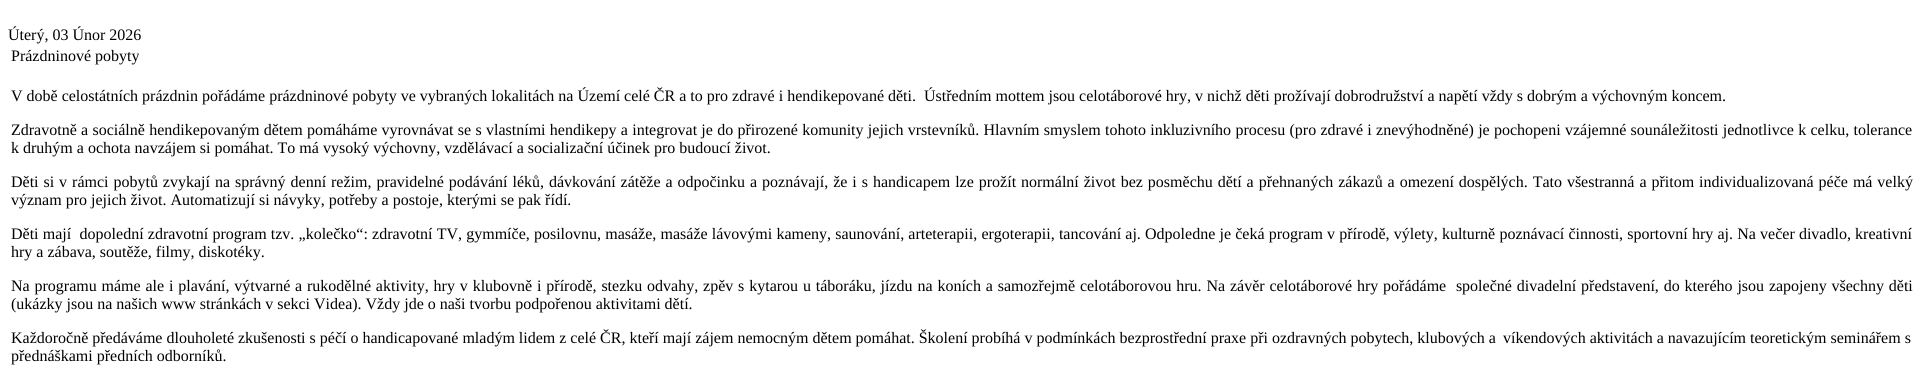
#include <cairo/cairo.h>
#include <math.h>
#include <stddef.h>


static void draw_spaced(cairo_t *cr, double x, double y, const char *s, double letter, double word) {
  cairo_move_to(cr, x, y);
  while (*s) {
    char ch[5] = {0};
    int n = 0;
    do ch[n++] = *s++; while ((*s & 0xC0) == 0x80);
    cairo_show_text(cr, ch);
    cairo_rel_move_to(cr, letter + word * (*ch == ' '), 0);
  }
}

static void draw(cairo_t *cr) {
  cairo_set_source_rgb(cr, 1, 1, 1);
  cairo_paint(cr);
  cairo_select_font_face(cr, "Liberation Serif", CAIRO_FONT_SLANT_NORMAL, CAIRO_FONT_WEIGHT_NORMAL);
  cairo_set_font_size(cr, 16);
  cairo_set_source_rgb(cr, 0, 0, 0);
  cairo_move_to(cr, 8, 40);
  cairo_show_text(cr, "Úterý, 03 Únor 2026");
  cairo_move_to(cr, 11, 61);
  cairo_show_text(cr, "Prázdninové pobyty");
  cairo_move_to(cr, 11, 101);
  cairo_show_text(cr, "V době celostátních prázdnin pořádáme prázdninové pobyty ve vybraných lokalitách na Území celé ČR a to pro zdravé i hendikepované děti.  Ústředním mottem jsou celotáborové hry, v nichž děti prožívají dobrodružství a napětí vždy s dobrým a výchovným koncem.");
  draw_spaced(cr, 11, 135, "Zdravotně a sociálně hendikepovaným dětem pomáháme vyrovnávat se s vlastními hendikepy a integrovat je do přirozené komunity jejich vrstevníků. Hlavním smyslem tohoto inkluzivního procesu (pro zdravé i znevýhodněné) je pochopeni vzájemné sounáležitosti jednotlivce k celku, tolerance", 0, 0.3);
  cairo_move_to(cr, 11, 153);
  cairo_show_text(cr, "k druhým a ochota navzájem si pomáhat. To má vysoký výchovny, vzdělávací a socializační účinek pro budoucí život.");
  draw_spaced(cr, 11, 187, "Děti si v rámci pobytů zvykají na správný denní režim, pravidelné podávání léků, dávkování zátěže a odpočinku a poznávají, že i s handicapem lze prožít normální život bez posměchu dětí a přehnaných zákazů a omezení dospělých. Tato všestranná a přitom individualizovaná péče má velký", 0, 0.95);
  cairo_move_to(cr, 11, 205);
  cairo_show_text(cr, "význam pro jejich život. Automatizují si návyky, potřeby a postoje, kterými se pak řídí.");
  draw_spaced(cr, 11, 239, "Děti mají  dopolední zdravotní program tzv. „kolečko“: zdravotní TV, gymmíče, posilovnu, masáže, masáže lávovými kameny, saunování, arteterapii, ergoterapii, tancování aj. Odpoledne je čeká program v přírodě, výlety, kulturně poznávací činnosti, sportovní hry aj. Na večer divadlo, kreativní", 0, 0.2);
  cairo_move_to(cr, 11, 257);
  cairo_show_text(cr, "hry a zábava, soutěže, filmy, diskotéky.");
  draw_spaced(cr, 11, 291, "Na programu máme ale i plavání, výtvarné a rukodělné aktivity, hry v klubovně i přírodě, stezku odvahy, zpěv s kytarou u táboráku, jízdu na koních a samozřejmě celotáborovou hru. Na závěr celotáborové hry pořádáme  společné divadelní představení, do kterého jsou zapojeny všechny děti", 0, 0.85);
  cairo_move_to(cr, 11, 309);
  cairo_show_text(cr, "(ukázky jsou na našich www stránkách v sekci Videa). Vždy jde o naši tvorbu podpořenou aktivitami dětí.");
  cairo_move_to(cr, 11, 343);
  cairo_show_text(cr, "Každoročně předáváme dlouholeté zkušenosti s péčí o handicapované mladým lidem z celé ČR, kteří mají zájem nemocným dětem pomáhat. Školení probíhá v podmínkách bezprostřední praxe při ozdravných pobytech, klubových a");
  cairo_move_to(cr, 1503, 343);
  cairo_show_text(cr, "víkendových aktivitách a navazujícím teoretickým seminářem s");
  cairo_move_to(cr, 11, 361);
  cairo_show_text(cr, "přednáškami předních odborníků.");
}

int main(void) {
  cairo_surface_t *surface = cairo_image_surface_create(CAIRO_FORMAT_RGB24, 1923, 382);
  cairo_t *cr = cairo_create(surface);
  cairo_font_options_t *options = cairo_font_options_create();
  cairo_font_options_set_hint_metrics(options, CAIRO_HINT_METRICS_OFF);
  cairo_font_options_set_hint_style(options, CAIRO_HINT_STYLE_NONE);
  cairo_set_font_options(cr, options);
  cairo_set_miter_limit(cr, 4);
  draw(cr);
  cairo_surface_write_to_png(surface, "out.png");
  cairo_font_options_destroy(options);
  cairo_destroy(cr);
  cairo_surface_destroy(surface);
  return 0;
}
